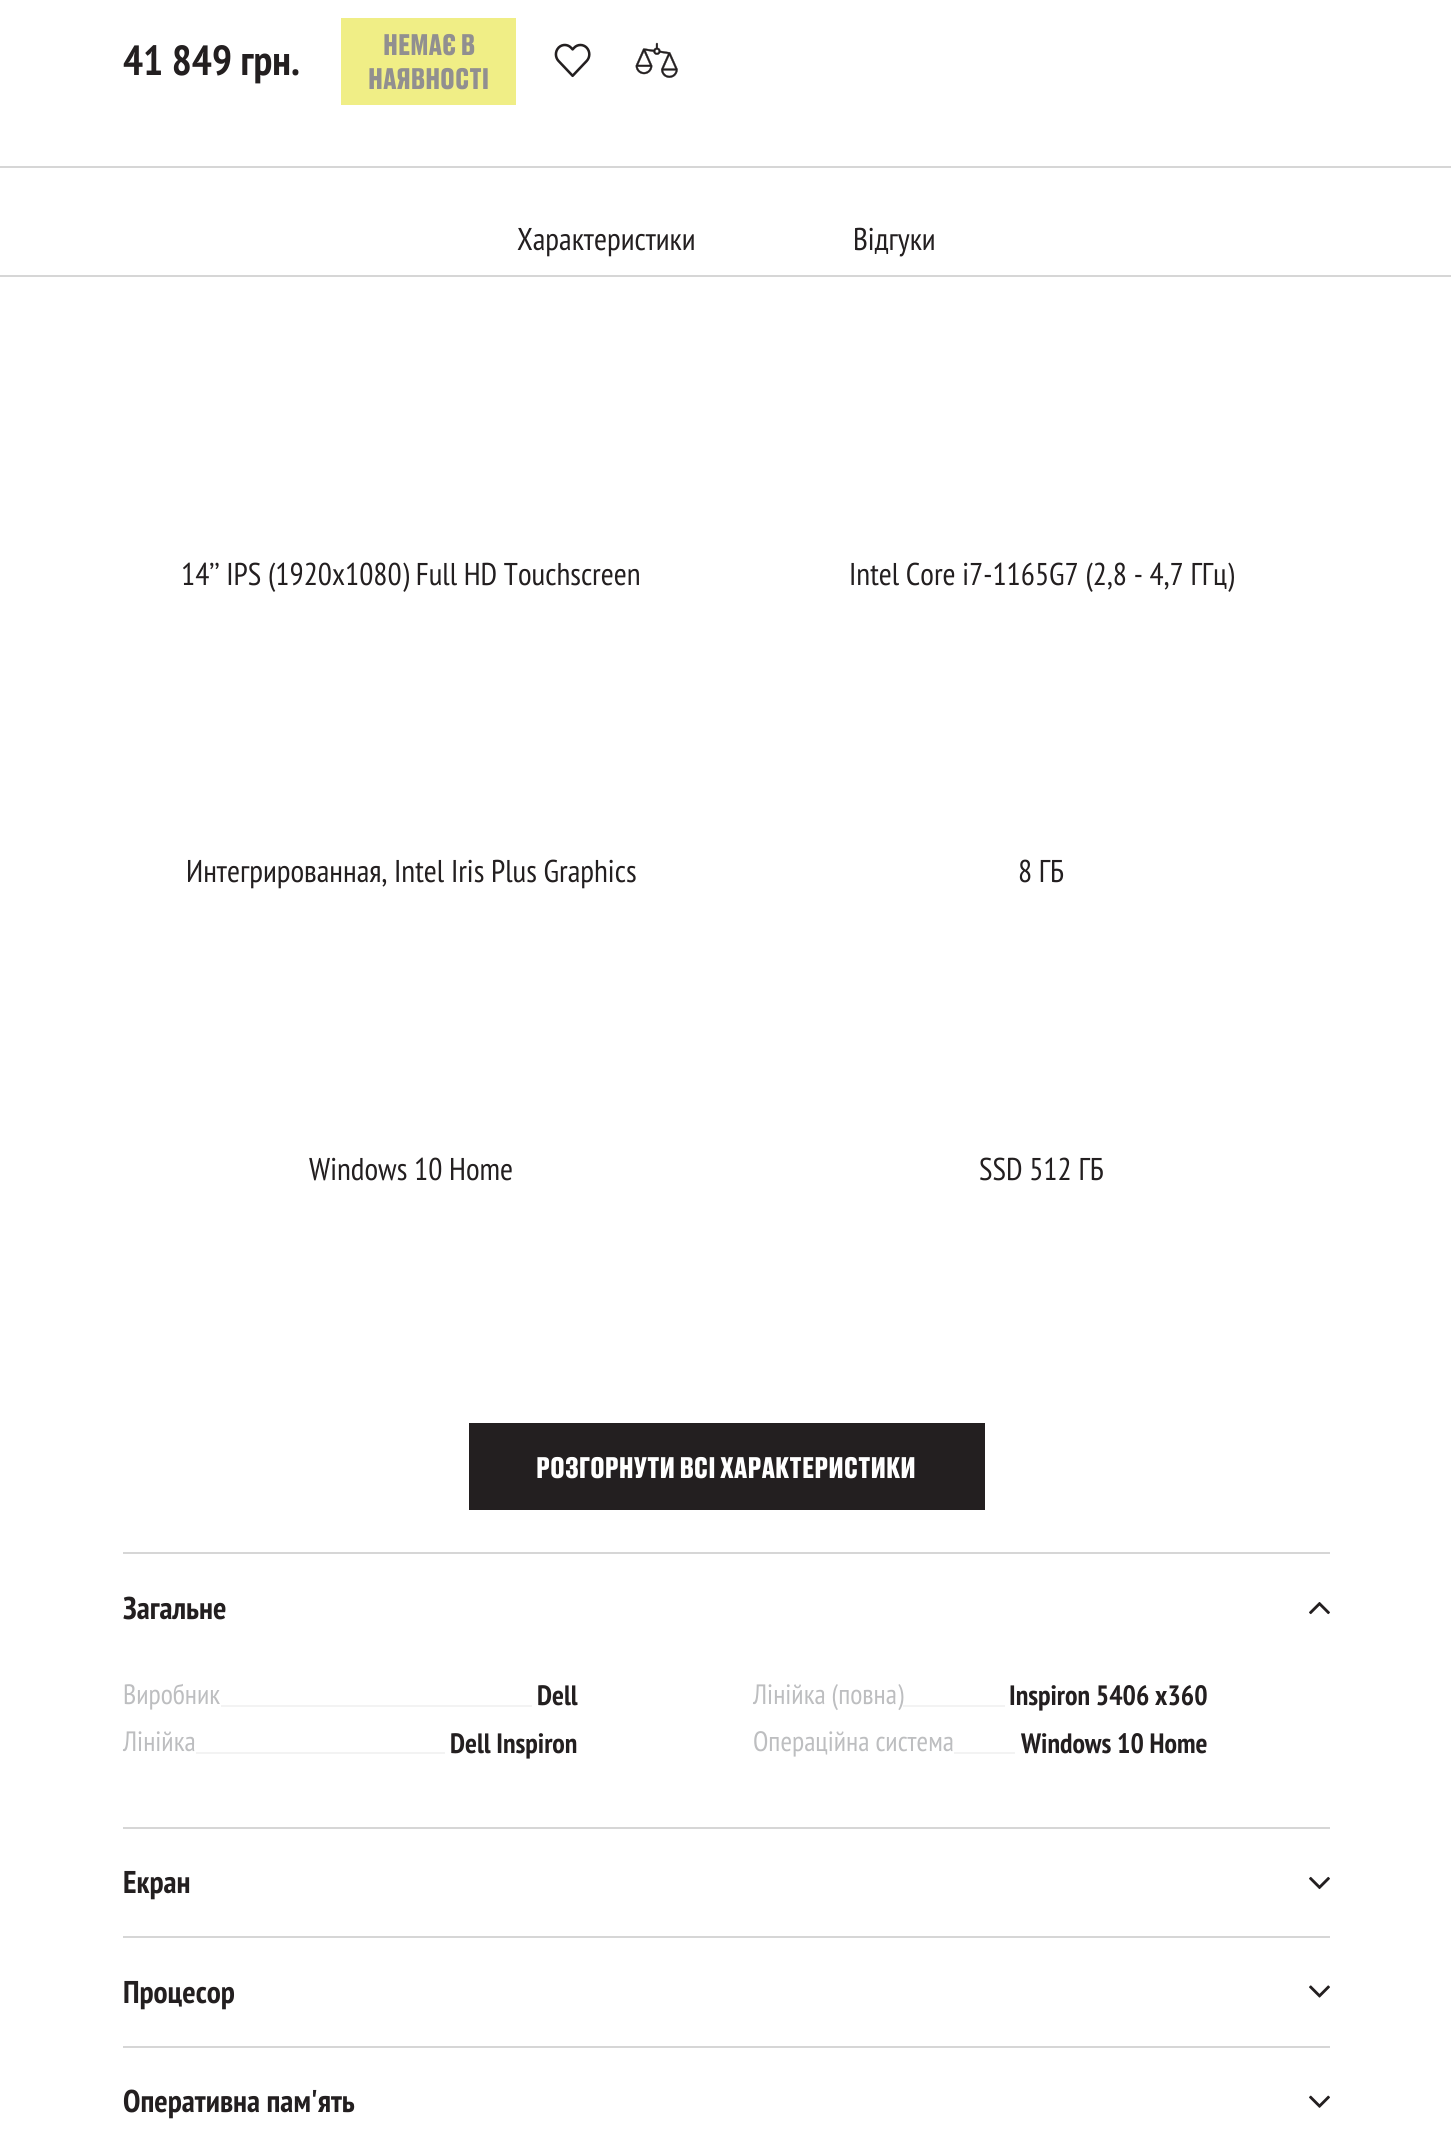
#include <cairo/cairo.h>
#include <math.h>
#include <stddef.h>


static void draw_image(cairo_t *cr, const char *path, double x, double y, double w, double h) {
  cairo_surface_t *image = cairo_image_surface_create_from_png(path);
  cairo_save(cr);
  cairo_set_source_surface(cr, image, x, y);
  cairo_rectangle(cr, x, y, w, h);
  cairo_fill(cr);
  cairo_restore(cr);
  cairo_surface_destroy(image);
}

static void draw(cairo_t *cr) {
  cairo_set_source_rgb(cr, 1, 1, 1);
  cairo_paint(cr);
  cairo_set_source_rgb(cr, 240 / 255.0, 238 / 255.0, 134 / 255.0);
  cairo_rectangle(cr, 341, 18, 175, 87);
  cairo_fill(cr);
  draw_image(cr, "images/1.png", 554, 43, 37, 35);
  draw_image(cr, "images/2.png", 635, 42, 43, 36);
  cairo_set_source_rgb(cr, 214 / 255.0, 214 / 255.0, 214 / 255.0);
  cairo_rectangle(cr, 0, 166, 1451, 2);
  cairo_fill(cr);
  cairo_rectangle(cr, 0, 275, 1451, 2);
  cairo_fill(cr);
  cairo_set_source_rgb(cr, 35 / 255.0, 31 / 255.0, 32 / 255.0);
  cairo_rectangle(cr, 469, 1423, 516, 87);
  cairo_fill(cr);
  cairo_set_source_rgb(cr, 214 / 255.0, 214 / 255.0, 214 / 255.0);
  cairo_rectangle(cr, 123, 1552, 1207, 2);
  cairo_fill(cr);
  draw_image(cr, "images/3.png", 1309, 1602, 21, 13);
  cairo_set_source_rgb(cr, 243 / 255.0, 243 / 255.0, 243 / 255.0);
  cairo_rectangle(cr, 221, 1705, 311, 2);
  cairo_fill(cr);
  cairo_rectangle(cr, 903, 1705, 102, 2);
  cairo_fill(cr);
  cairo_rectangle(cr, 196, 1752, 249, 2);
  cairo_fill(cr);
  cairo_rectangle(cr, 954, 1752, 61, 2);
  cairo_fill(cr);
  cairo_set_source_rgb(cr, 214 / 255.0, 214 / 255.0, 214 / 255.0);
  cairo_rectangle(cr, 123, 1827, 1207, 2);
  cairo_fill(cr);
  draw_image(cr, "images/4.png", 1309, 1876, 21, 14);
  cairo_rectangle(cr, 123, 1936, 1207, 2);
  cairo_fill(cr);
  draw_image(cr, "images/5.png", 1309, 1985, 21, 13);
  cairo_rectangle(cr, 123, 2046, 1207, 2);
  cairo_fill(cr);
  draw_image(cr, "images/6.png", 1309, 2095, 21, 13);
  cairo_select_font_face(cr, "PT Sans Narrow", CAIRO_FONT_SLANT_NORMAL, CAIRO_FONT_WEIGHT_BOLD);
  cairo_set_font_size(cr, 42);
  cairo_set_source_rgb(cr, 35 / 255.0, 31 / 255.0, 32 / 255.0);
  cairo_move_to(cr, 123, 75);
  cairo_show_text(cr, "41 849 грн.");
  cairo_select_font_face(cr, "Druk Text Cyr", CAIRO_FONT_SLANT_NORMAL, CAIRO_FONT_WEIGHT_BOLD);
  cairo_set_font_size(cr, 28);
  cairo_set_source_rgb(cr, 145 / 255.0, 143 / 255.0, 144 / 255.0);
  cairo_move_to(cr, 383, 55);
  cairo_show_text(cr, "НЕМАЄ В");
  cairo_move_to(cr, 368, 89);
  cairo_show_text(cr, "НАЯВНОСТІ");
  cairo_select_font_face(cr, "PT Sans Narrow", CAIRO_FONT_SLANT_NORMAL, CAIRO_FONT_WEIGHT_NORMAL);
  cairo_set_font_size(cr, 31.5);
  cairo_set_source_rgb(cr, 35 / 255.0, 31 / 255.0, 32 / 255.0);
  cairo_move_to(cr, 517, 250);
  cairo_show_text(cr, "Характеристики");
  cairo_move_to(cr, 853, 250);
  cairo_show_text(cr, "Відгуки");
  cairo_move_to(cr, 181, 585);
  cairo_show_text(cr, "14’’ IPS (1920x1080) Full HD Touchscreen");
  cairo_move_to(cr, 849, 585);
  cairo_show_text(cr, "Intel Core i7-1165G7 (2,8 - 4,7 ГГц)");
  cairo_move_to(cr, 186, 882);
  cairo_show_text(cr, "Интегрированная, Intel Iris Plus Graphics");
  cairo_move_to(cr, 1018, 882);
  cairo_show_text(cr, "8 ГБ");
  cairo_move_to(cr, 309, 1180);
  cairo_show_text(cr, "Windows 10 Home");
  cairo_move_to(cr, 979, 1180);
  cairo_show_text(cr, "SSD 512 ГБ");
  cairo_select_font_face(cr, "Druk Text Cyr", CAIRO_FONT_SLANT_NORMAL, CAIRO_FONT_WEIGHT_BOLD);
  cairo_set_font_size(cr, 28);
  cairo_set_source_rgb(cr, 1, 1, 1);
  cairo_move_to(cr, 536, 1478);
  cairo_show_text(cr, "РОЗГОРНУТИ ВСІ ХАРАКТЕРИСТИКИ");
  cairo_select_font_face(cr, "PT Sans Narrow", CAIRO_FONT_SLANT_NORMAL, CAIRO_FONT_WEIGHT_BOLD);
  cairo_set_font_size(cr, 31.5);
  cairo_set_source_rgb(cr, 35 / 255.0, 31 / 255.0, 32 / 255.0);
  cairo_move_to(cr, 123, 1619);
  cairo_show_text(cr, "Загальне");
  cairo_select_font_face(cr, "PT Sans Narrow", CAIRO_FONT_SLANT_NORMAL, CAIRO_FONT_WEIGHT_NORMAL);
  cairo_set_font_size(cr, 28);
  cairo_set_source_rgb(cr, 189 / 255.0, 190 / 255.0, 192 / 255.0);
  cairo_move_to(cr, 123, 1704);
  cairo_show_text(cr, "Виробник");
  cairo_select_font_face(cr, "PT Sans Narrow", CAIRO_FONT_SLANT_NORMAL, CAIRO_FONT_WEIGHT_BOLD);
  cairo_set_source_rgb(cr, 35 / 255.0, 31 / 255.0, 32 / 255.0);
  cairo_move_to(cr, 537, 1705);
  cairo_show_text(cr, "Dell");
  cairo_select_font_face(cr, "PT Sans Narrow", CAIRO_FONT_SLANT_NORMAL, CAIRO_FONT_WEIGHT_NORMAL);
  cairo_set_source_rgb(cr, 189 / 255.0, 190 / 255.0, 192 / 255.0);
  cairo_move_to(cr, 753, 1704);
  cairo_show_text(cr, "Лінійка (повна)");
  cairo_select_font_face(cr, "PT Sans Narrow", CAIRO_FONT_SLANT_NORMAL, CAIRO_FONT_WEIGHT_BOLD);
  cairo_set_source_rgb(cr, 35 / 255.0, 31 / 255.0, 32 / 255.0);
  cairo_move_to(cr, 1009, 1705);
  cairo_show_text(cr, "Inspiron 5406 x360");
  cairo_select_font_face(cr, "PT Sans Narrow", CAIRO_FONT_SLANT_NORMAL, CAIRO_FONT_WEIGHT_NORMAL);
  cairo_set_source_rgb(cr, 189 / 255.0, 190 / 255.0, 192 / 255.0);
  cairo_move_to(cr, 123, 1751);
  cairo_show_text(cr, "Лінійка");
  cairo_select_font_face(cr, "PT Sans Narrow", CAIRO_FONT_SLANT_NORMAL, CAIRO_FONT_WEIGHT_BOLD);
  cairo_set_source_rgb(cr, 35 / 255.0, 31 / 255.0, 32 / 255.0);
  cairo_move_to(cr, 450, 1753);
  cairo_show_text(cr, "Dell Inspiron");
  cairo_select_font_face(cr, "PT Sans Narrow", CAIRO_FONT_SLANT_NORMAL, CAIRO_FONT_WEIGHT_NORMAL);
  cairo_set_source_rgb(cr, 189 / 255.0, 190 / 255.0, 192 / 255.0);
  cairo_move_to(cr, 753, 1751);
  cairo_show_text(cr, "Операційна система");
  cairo_select_font_face(cr, "PT Sans Narrow", CAIRO_FONT_SLANT_NORMAL, CAIRO_FONT_WEIGHT_BOLD);
  cairo_set_source_rgb(cr, 35 / 255.0, 31 / 255.0, 32 / 255.0);
  cairo_move_to(cr, 1021, 1753);
  cairo_show_text(cr, "Windows 10 Home");
  cairo_set_font_size(cr, 31.5);
  cairo_move_to(cr, 123, 1893);
  cairo_show_text(cr, "Екран");
  cairo_move_to(cr, 123, 2003);
  cairo_show_text(cr, "Процесор");
  cairo_move_to(cr, 123, 2112);
  cairo_show_text(cr, "Оперативна пам'ять");
}

int main(void) {
  cairo_surface_t *surface = cairo_image_surface_create(CAIRO_FORMAT_RGB24, 1451, 2137);
  cairo_t *cr = cairo_create(surface);
  cairo_font_options_t *options = cairo_font_options_create();
  cairo_font_options_set_hint_metrics(options, CAIRO_HINT_METRICS_OFF);
  cairo_font_options_set_hint_style(options, CAIRO_HINT_STYLE_NONE);
  cairo_set_font_options(cr, options);
  cairo_set_miter_limit(cr, 4);
  draw(cr);
  cairo_surface_write_to_png(surface, "out.png");
  cairo_font_options_destroy(options);
  cairo_destroy(cr);
  cairo_surface_destroy(surface);
  return 0;
}
